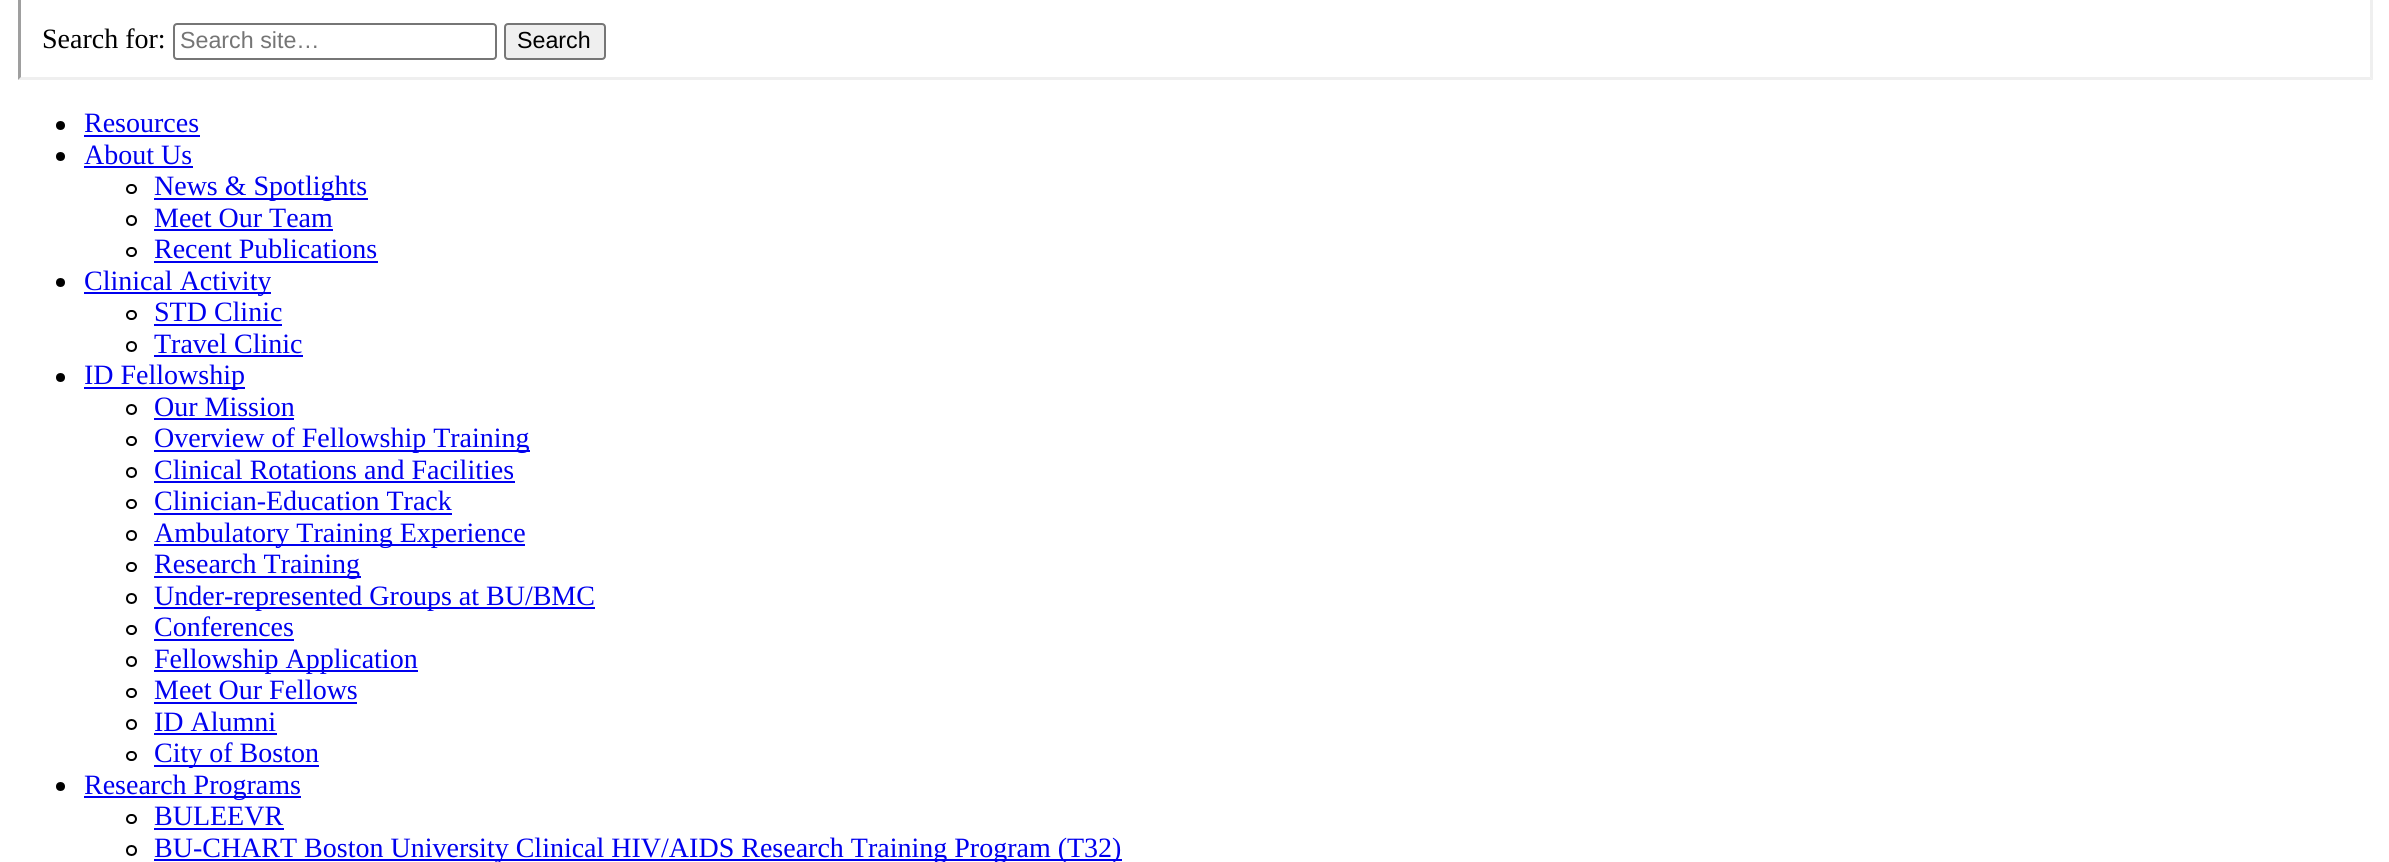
#include <cairo/cairo.h>
#include <math.h>
#include <stddef.h>


static void rounded_rect(cairo_t *cr, double x, double y, double w, double h, double r) {
  cairo_new_sub_path(cr);
  cairo_arc(cr, x + w - r, y + h - r, r, 0, M_PI / 2);
  cairo_arc(cr, x + r, y + h - r, r, M_PI / 2, M_PI);
  cairo_arc(cr, x + r, y + r, r, M_PI, 1.5 * M_PI);
  cairo_arc(cr, x + w - r, y + r, r, 1.5 * M_PI, 2 * M_PI);
  cairo_close_path(cr);
}

static void draw(cairo_t *cr) {
  cairo_set_source_rgb(cr, 1, 1, 1);
  cairo_paint(cr);
  cairo_set_source_rgb(cr, 239 / 255.0, 239 / 255.0, 239 / 255.0);
  cairo_new_path(cr);
  cairo_move_to(cr, 2373, -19);
  cairo_line_to(cr, 2373, 80);
  cairo_line_to(cr, 2370, 77);
  cairo_line_to(cr, 2370, -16);
  cairo_close_path(cr);
  cairo_fill(cr);
  cairo_new_path(cr);
  cairo_move_to(cr, 2373, 80);
  cairo_line_to(cr, 18, 80);
  cairo_line_to(cr, 21, 77);
  cairo_line_to(cr, 2370, 77);
  cairo_close_path(cr);
  cairo_fill(cr);
  cairo_set_source_rgb(cr, 159 / 255.0, 159 / 255.0, 159 / 255.0);
  cairo_new_path(cr);
  cairo_move_to(cr, 18, 80);
  cairo_line_to(cr, 18, -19);
  cairo_line_to(cr, 21, -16);
  cairo_line_to(cr, 21, 77);
  cairo_close_path(cr);
  cairo_fill(cr);
  rounded_rect(cr, 174, 24, 322, 35, 3);
  cairo_set_source_rgb(cr, 118 / 255.0, 118 / 255.0, 118 / 255.0);
  cairo_stroke(cr);
  cairo_set_source_rgb(cr, 239 / 255.0, 239 / 255.0, 239 / 255.0);
  rounded_rect(cr, 505, 24, 100, 35, 3);
  cairo_fill_preserve(cr);
  cairo_set_source_rgb(cr, 118 / 255.0, 118 / 255.0, 118 / 255.0);
  cairo_stroke(cr);
  cairo_set_source_rgb(cr, 0, 0, 0);
  cairo_arc(cr, 60.5, 125.5, 4.5, 0, 2 * M_PI);
  cairo_fill(cr);
  cairo_set_source_rgb(cr, 0, 0, 238 / 255.0);
  cairo_rectangle(cr, 84, 135, 116, 2);
  cairo_fill(cr);
  cairo_set_source_rgb(cr, 0, 0, 0);
  cairo_arc(cr, 60.5, 156.5, 4.5, 0, 2 * M_PI);
  cairo_fill(cr);
  cairo_set_source_rgb(cr, 0, 0, 238 / 255.0);
  cairo_rectangle(cr, 84, 166, 109, 2);
  cairo_fill(cr);
  rounded_rect(cr, 127, 185, 9, 8, 4);
  cairo_set_source_rgb(cr, 0, 0, 0);
  cairo_stroke(cr);
  cairo_set_source_rgb(cr, 0, 0, 238 / 255.0);
  cairo_rectangle(cr, 154, 198, 214, 2);
  cairo_fill(cr);
  cairo_arc(cr, 131.5, 220.5, 4.5, 0, 2 * M_PI);
  cairo_set_source_rgb(cr, 0, 0, 0);
  cairo_stroke(cr);
  cairo_set_source_rgb(cr, 0, 0, 238 / 255.0);
  cairo_rectangle(cr, 154, 229, 179, 2);
  cairo_fill(cr);
  rounded_rect(cr, 127, 248, 9, 8, 4);
  cairo_set_source_rgb(cr, 0, 0, 0);
  cairo_stroke(cr);
  cairo_set_source_rgb(cr, 0, 0, 238 / 255.0);
  cairo_rectangle(cr, 154, 261, 224, 2);
  cairo_fill(cr);
  cairo_set_source_rgb(cr, 0, 0, 0);
  cairo_arc(cr, 60.5, 282.5, 4.5, 0, 2 * M_PI);
  cairo_fill(cr);
  cairo_set_source_rgb(cr, 0, 0, 238 / 255.0);
  cairo_rectangle(cr, 84, 292, 187, 2);
  cairo_fill(cr);
  rounded_rect(cr, 127, 311, 9, 8, 4);
  cairo_set_source_rgb(cr, 0, 0, 0);
  cairo_stroke(cr);
  cairo_set_source_rgb(cr, 0, 0, 238 / 255.0);
  cairo_rectangle(cr, 154, 324, 128, 2);
  cairo_fill(cr);
  cairo_arc(cr, 131.5, 346.5, 4.5, 0, 2 * M_PI);
  cairo_set_source_rgb(cr, 0, 0, 0);
  cairo_stroke(cr);
  cairo_set_source_rgb(cr, 0, 0, 238 / 255.0);
  cairo_rectangle(cr, 154, 355, 149, 2);
  cairo_fill(cr);
  cairo_set_source_rgb(cr, 0, 0, 0);
  cairo_arc(cr, 60.5, 377.5, 4.5, 0, 2 * M_PI);
  cairo_fill(cr);
  cairo_set_source_rgb(cr, 0, 0, 238 / 255.0);
  cairo_rectangle(cr, 84, 387, 161, 2);
  cairo_fill(cr);
  cairo_arc(cr, 131.5, 409.5, 4.5, 0, 2 * M_PI);
  cairo_set_source_rgb(cr, 0, 0, 0);
  cairo_stroke(cr);
  cairo_set_source_rgb(cr, 0, 0, 238 / 255.0);
  cairo_rectangle(cr, 154, 418, 140, 2);
  cairo_fill(cr);
  rounded_rect(cr, 127, 437, 9, 8, 4);
  cairo_set_source_rgb(cr, 0, 0, 0);
  cairo_stroke(cr);
  cairo_set_source_rgb(cr, 0, 0, 238 / 255.0);
  cairo_rectangle(cr, 154, 450, 376, 2);
  cairo_fill(cr);
  cairo_arc(cr, 131.5, 472.5, 4.5, 0, 2 * M_PI);
  cairo_set_source_rgb(cr, 0, 0, 0);
  cairo_stroke(cr);
  cairo_set_source_rgb(cr, 0, 0, 238 / 255.0);
  cairo_rectangle(cr, 154, 481, 361, 2);
  cairo_fill(cr);
  rounded_rect(cr, 127, 500, 9, 8, 4);
  cairo_set_source_rgb(cr, 0, 0, 0);
  cairo_stroke(cr);
  cairo_set_source_rgb(cr, 0, 0, 238 / 255.0);
  cairo_rectangle(cr, 154, 513, 298, 2);
  cairo_fill(cr);
  cairo_arc(cr, 131.5, 535.5, 4.5, 0, 2 * M_PI);
  cairo_set_source_rgb(cr, 0, 0, 0);
  cairo_stroke(cr);
  cairo_set_source_rgb(cr, 0, 0, 238 / 255.0);
  cairo_rectangle(cr, 154, 544, 371, 2);
  cairo_fill(cr);
  rounded_rect(cr, 127, 563, 9, 8, 4);
  cairo_set_source_rgb(cr, 0, 0, 0);
  cairo_stroke(cr);
  cairo_set_source_rgb(cr, 0, 0, 238 / 255.0);
  cairo_rectangle(cr, 154, 576, 207, 2);
  cairo_fill(cr);
  cairo_arc(cr, 131.5, 598.5, 4.5, 0, 2 * M_PI);
  cairo_set_source_rgb(cr, 0, 0, 0);
  cairo_stroke(cr);
  cairo_set_source_rgb(cr, 0, 0, 238 / 255.0);
  cairo_rectangle(cr, 154, 607, 441, 2);
  cairo_fill(cr);
  rounded_rect(cr, 127, 626, 9, 8, 4);
  cairo_set_source_rgb(cr, 0, 0, 0);
  cairo_stroke(cr);
  cairo_set_source_rgb(cr, 0, 0, 238 / 255.0);
  cairo_rectangle(cr, 154, 639, 140, 2);
  cairo_fill(cr);
  cairo_arc(cr, 131.5, 661.5, 4.5, 0, 2 * M_PI);
  cairo_set_source_rgb(cr, 0, 0, 0);
  cairo_stroke(cr);
  cairo_set_source_rgb(cr, 0, 0, 238 / 255.0);
  cairo_rectangle(cr, 154, 670, 264, 2);
  cairo_fill(cr);
  rounded_rect(cr, 127, 689, 9, 8, 4);
  cairo_set_source_rgb(cr, 0, 0, 0);
  cairo_stroke(cr);
  cairo_set_source_rgb(cr, 0, 0, 238 / 255.0);
  cairo_rectangle(cr, 154, 702, 203, 2);
  cairo_fill(cr);
  cairo_arc(cr, 131.5, 724.5, 4.5, 0, 2 * M_PI);
  cairo_set_source_rgb(cr, 0, 0, 0);
  cairo_stroke(cr);
  cairo_set_source_rgb(cr, 0, 0, 238 / 255.0);
  cairo_rectangle(cr, 154, 733, 123, 2);
  cairo_fill(cr);
  rounded_rect(cr, 127, 752, 9, 8, 4);
  cairo_set_source_rgb(cr, 0, 0, 0);
  cairo_stroke(cr);
  cairo_set_source_rgb(cr, 0, 0, 238 / 255.0);
  cairo_rectangle(cr, 154, 765, 165, 2);
  cairo_fill(cr);
  cairo_set_source_rgb(cr, 0, 0, 0);
  cairo_arc(cr, 60.5, 786.5, 4.5, 0, 2 * M_PI);
  cairo_fill(cr);
  cairo_set_source_rgb(cr, 0, 0, 238 / 255.0);
  cairo_rectangle(cr, 84, 796, 217, 2);
  cairo_fill(cr);
  rounded_rect(cr, 127, 815, 9, 8, 4);
  cairo_set_source_rgb(cr, 0, 0, 0);
  cairo_stroke(cr);
  cairo_set_source_rgb(cr, 0, 0, 238 / 255.0);
  cairo_rectangle(cr, 154, 828, 130, 2);
  cairo_fill(cr);
  cairo_arc(cr, 131.5, 850.5, 4.5, 0, 2 * M_PI);
  cairo_set_source_rgb(cr, 0, 0, 0);
  cairo_stroke(cr);
  cairo_set_source_rgb(cr, 0, 0, 238 / 255.0);
  cairo_rectangle(cr, 154, 859, 968, 2);
  cairo_fill(cr);
  cairo_select_font_face(cr, "Liberation Serif", CAIRO_FONT_SLANT_NORMAL, CAIRO_FONT_WEIGHT_NORMAL);
  cairo_set_font_size(cr, 28);
  cairo_set_source_rgb(cr, 0, 0, 0);
  cairo_move_to(cr, 42, 48);
  cairo_show_text(cr, "Search for:");
  cairo_select_font_face(cr, "Liberation Sans", CAIRO_FONT_SLANT_NORMAL, CAIRO_FONT_WEIGHT_NORMAL);
  cairo_set_font_size(cr, 23.25);
  cairo_set_source_rgb(cr, 117 / 255.0, 117 / 255.0, 117 / 255.0);
  cairo_move_to(cr, 180, 48);
  cairo_show_text(cr, "Search site…");
  cairo_set_source_rgb(cr, 0, 0, 0);
  cairo_move_to(cr, 517, 48);
  cairo_show_text(cr, "Search");
  cairo_select_font_face(cr, "Liberation Serif", CAIRO_FONT_SLANT_NORMAL, CAIRO_FONT_WEIGHT_NORMAL);
  cairo_set_font_size(cr, 28);
  cairo_set_source_rgb(cr, 0, 0, 238 / 255.0);
  cairo_move_to(cr, 84, 132);
  cairo_show_text(cr, "Resources");
  cairo_move_to(cr, 84, 164);
  cairo_show_text(cr, "About Us");
  cairo_move_to(cr, 154, 195);
  cairo_show_text(cr, "News & Spotlights");
  cairo_move_to(cr, 154, 227);
  cairo_show_text(cr, "Meet Our Team");
  cairo_move_to(cr, 154, 258);
  cairo_show_text(cr, "Recent Publications");
  cairo_move_to(cr, 84, 290);
  cairo_show_text(cr, "Clinical Activity");
  cairo_move_to(cr, 154, 321);
  cairo_show_text(cr, "STD Clinic");
  cairo_move_to(cr, 154, 353);
  cairo_show_text(cr, "Travel Clinic");
  cairo_move_to(cr, 84, 384);
  cairo_show_text(cr, "ID Fellowship");
  cairo_move_to(cr, 154, 416);
  cairo_show_text(cr, "Our Mission");
  cairo_move_to(cr, 154, 447);
  cairo_show_text(cr, "Overview of Fellowship Training");
  cairo_move_to(cr, 154, 479);
  cairo_show_text(cr, "Clinical Rotations and Facilities");
  cairo_move_to(cr, 154, 510);
  cairo_show_text(cr, "Clinician-Education Track");
  cairo_move_to(cr, 154, 542);
  cairo_show_text(cr, "Ambulatory Training Experience");
  cairo_move_to(cr, 154, 573);
  cairo_show_text(cr, "Research Training");
  cairo_move_to(cr, 154, 605);
  cairo_show_text(cr, "Under-represented Groups at BU/BMC");
  cairo_move_to(cr, 154, 636);
  cairo_show_text(cr, "Conferences");
  cairo_move_to(cr, 154, 668);
  cairo_show_text(cr, "Fellowship Application");
  cairo_move_to(cr, 154, 699);
  cairo_show_text(cr, "Meet Our Fellows");
  cairo_move_to(cr, 154, 731);
  cairo_show_text(cr, "ID Alumni");
  cairo_move_to(cr, 154, 762);
  cairo_show_text(cr, "City of Boston");
  cairo_move_to(cr, 84, 794);
  cairo_show_text(cr, "Research Programs");
  cairo_move_to(cr, 154, 825);
  cairo_show_text(cr, "BULEEVR");
  cairo_move_to(cr, 154, 857);
  cairo_show_text(cr, "BU-CHART Boston University Clinical HIV/AIDS Research Training Program (T32)");
}

int main(void) {
  cairo_surface_t *surface = cairo_image_surface_create(CAIRO_FORMAT_RGB24, 2389, 862);
  cairo_t *cr = cairo_create(surface);
  cairo_font_options_t *options = cairo_font_options_create();
  cairo_font_options_set_hint_metrics(options, CAIRO_HINT_METRICS_OFF);
  cairo_font_options_set_hint_style(options, CAIRO_HINT_STYLE_NONE);
  cairo_set_font_options(cr, options);
  cairo_set_miter_limit(cr, 4);
  draw(cr);
  cairo_surface_write_to_png(surface, "out.png");
  cairo_font_options_destroy(options);
  cairo_destroy(cr);
  cairo_surface_destroy(surface);
  return 0;
}
